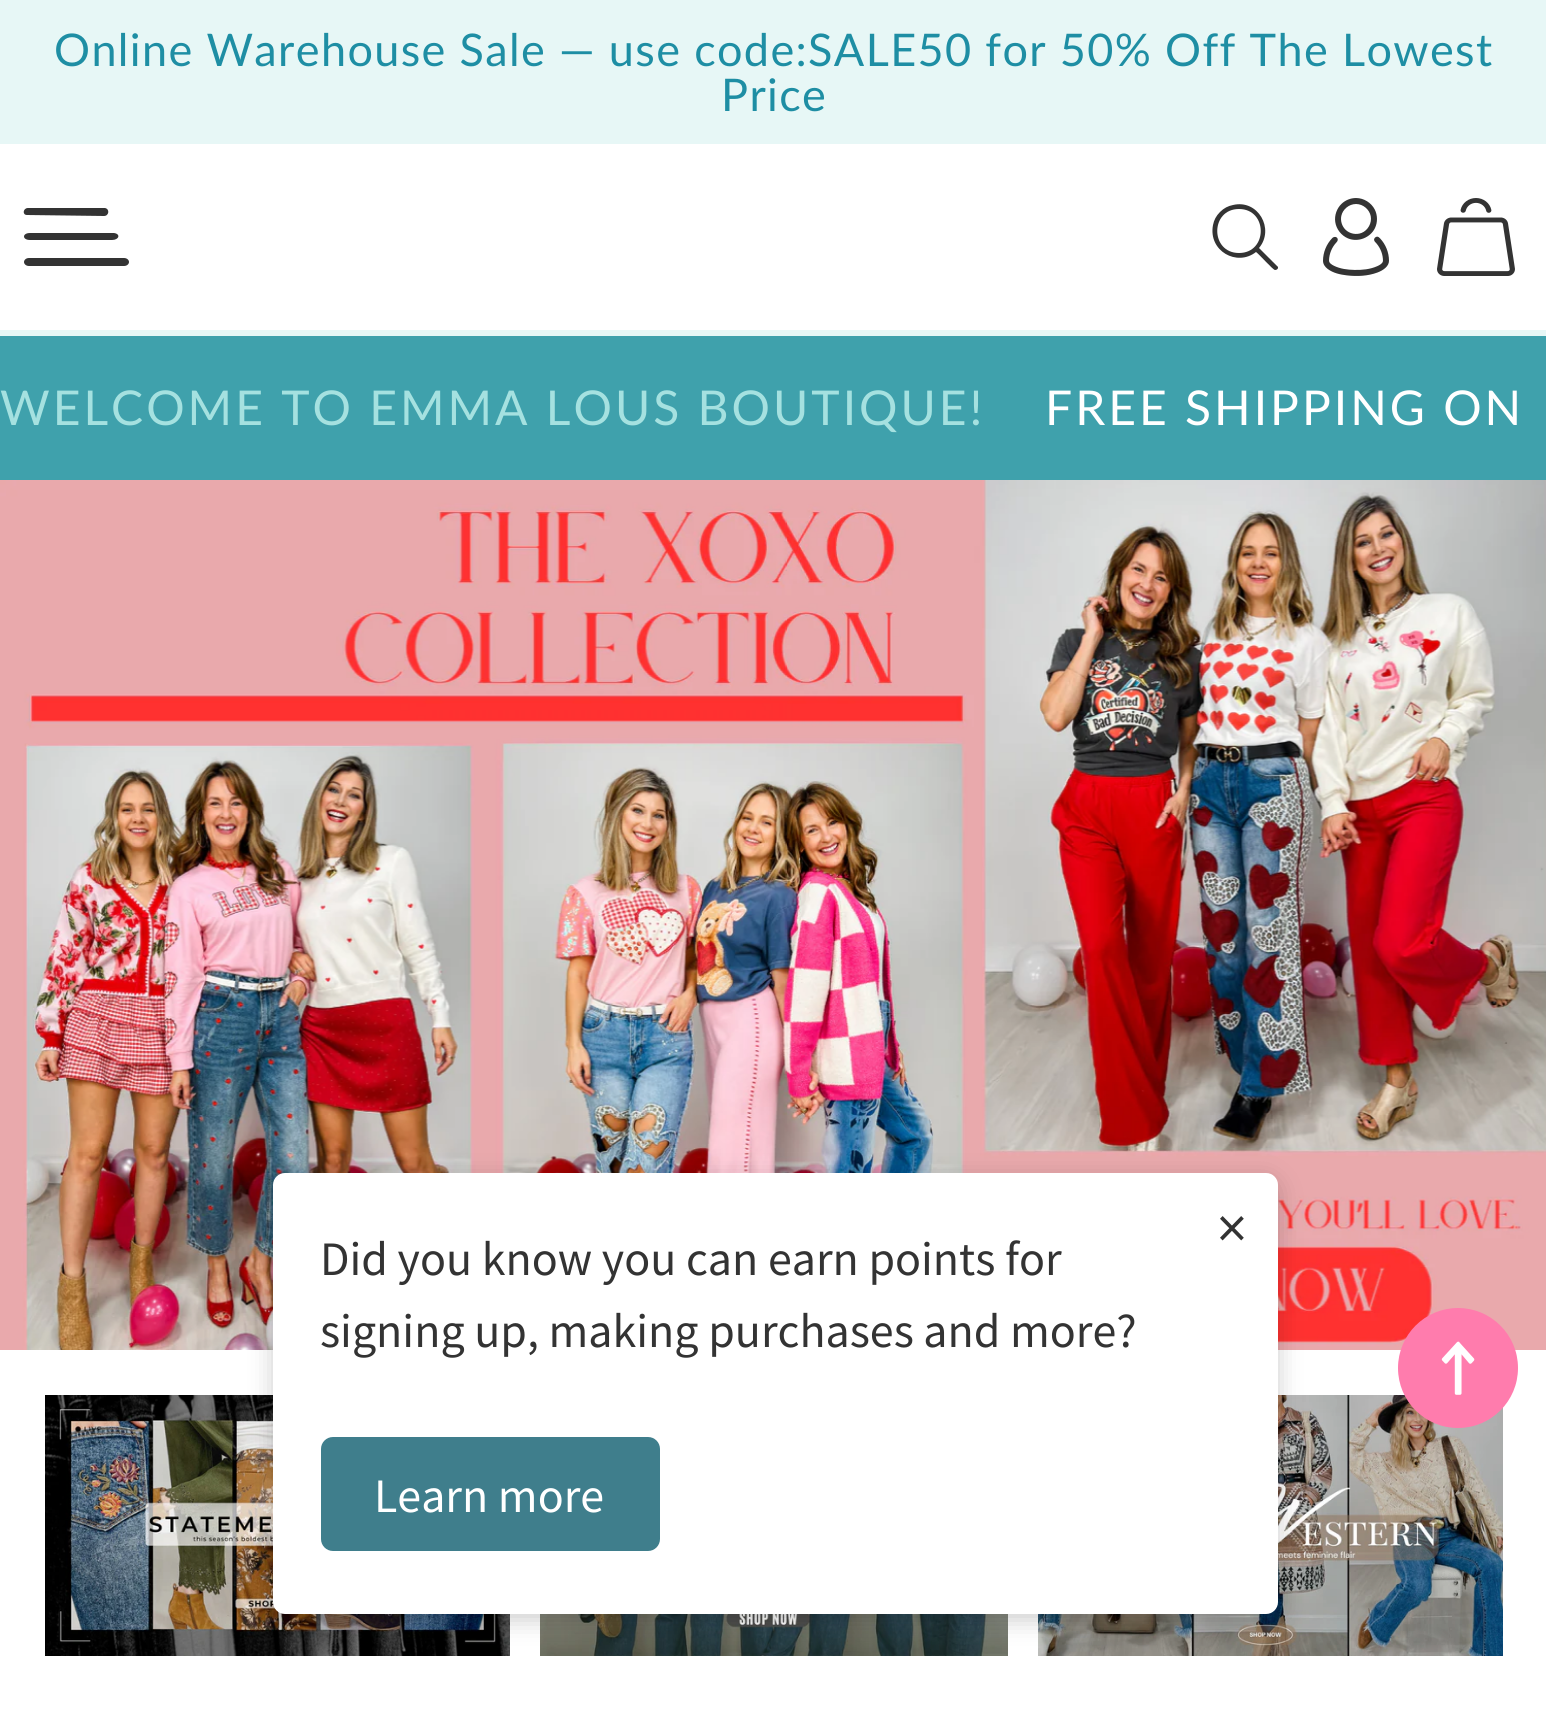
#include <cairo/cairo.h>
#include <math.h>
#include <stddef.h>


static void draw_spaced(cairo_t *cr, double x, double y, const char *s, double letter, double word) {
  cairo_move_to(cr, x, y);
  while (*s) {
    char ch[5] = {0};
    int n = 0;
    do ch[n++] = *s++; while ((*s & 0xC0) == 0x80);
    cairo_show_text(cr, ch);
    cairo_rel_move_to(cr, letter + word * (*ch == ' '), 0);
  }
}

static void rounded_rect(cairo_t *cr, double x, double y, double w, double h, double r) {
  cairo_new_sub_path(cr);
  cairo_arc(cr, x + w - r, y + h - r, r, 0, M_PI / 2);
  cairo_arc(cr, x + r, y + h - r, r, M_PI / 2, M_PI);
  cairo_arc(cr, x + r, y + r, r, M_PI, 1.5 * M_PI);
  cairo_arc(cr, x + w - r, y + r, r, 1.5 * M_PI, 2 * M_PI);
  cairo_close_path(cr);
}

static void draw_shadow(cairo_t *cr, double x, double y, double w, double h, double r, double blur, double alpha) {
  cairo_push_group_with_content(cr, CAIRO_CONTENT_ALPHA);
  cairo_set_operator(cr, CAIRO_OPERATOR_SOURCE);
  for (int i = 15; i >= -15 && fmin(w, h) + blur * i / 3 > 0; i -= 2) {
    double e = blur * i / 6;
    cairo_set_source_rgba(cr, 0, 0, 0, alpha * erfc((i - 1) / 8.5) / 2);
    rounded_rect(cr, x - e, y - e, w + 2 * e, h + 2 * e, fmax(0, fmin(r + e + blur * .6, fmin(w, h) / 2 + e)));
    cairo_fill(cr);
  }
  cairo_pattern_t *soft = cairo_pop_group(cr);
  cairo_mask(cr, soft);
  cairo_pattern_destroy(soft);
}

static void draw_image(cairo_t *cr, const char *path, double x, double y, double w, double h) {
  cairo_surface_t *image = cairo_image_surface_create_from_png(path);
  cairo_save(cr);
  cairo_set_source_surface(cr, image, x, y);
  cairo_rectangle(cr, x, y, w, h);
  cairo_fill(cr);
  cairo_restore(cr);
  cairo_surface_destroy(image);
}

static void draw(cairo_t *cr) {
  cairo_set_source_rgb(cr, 1, 1, 1);
  cairo_paint(cr);
  cairo_set_source_rgb(cr, 231 / 255.0, 247 / 255.0, 246 / 255.0);
  cairo_rectangle(cr, 0, 0, 1546, 144);
  cairo_fill(cr);
  cairo_set_source_rgb(cr, 51 / 255.0, 51 / 255.0, 51 / 255.0);
  cairo_new_path(cr);
  cairo_move_to(cr, 28, 208);
  cairo_curve_to(cr, 23, 208, 22, 215, 27, 215);
  cairo_line_to(cr, 104, 216);
  cairo_curve_to(cr, 109, 216, 110, 209, 105, 208);
  cairo_close_path(cr);
  cairo_move_to(cr, 30, 233);
  cairo_curve_to(cr, 22, 233, 22, 240, 30, 240);
  cairo_line_to(cr, 112, 240);
  cairo_curve_to(cr, 119, 240, 121, 234, 114, 233);
  cairo_close_path(cr);
  cairo_move_to(cr, 29, 258);
  cairo_curve_to(cr, 26, 258, 24, 260, 24, 262);
  cairo_curve_to(cr, 24, 264, 26, 266, 29, 266);
  cairo_line_to(cr, 124, 266);
  cairo_curve_to(cr, 127, 266, 129, 264, 129, 262);
  cairo_curve_to(cr, 129, 260, 127, 258, 124, 258);
  cairo_close_path(cr);
  cairo_fill(cr);
  cairo_new_path(cr);
  cairo_move_to(cr, 1277, 266);
  cairo_line_to(cr, 1259, 248);
  cairo_curve_to(cr, 1275, 229, 1258, 199, 1233, 205);
  cairo_curve_to(cr, 1228, 206, 1224, 208, 1220, 212);
  cairo_curve_to(cr, 1216, 216, 1214, 220, 1213, 225);
  cairo_curve_to(cr, 1208, 251, 1237, 267, 1256, 252);
  cairo_curve_to(cr, 1259, 254, 1273, 270, 1275, 270);
  cairo_curve_to(cr, 1278, 270, 1279, 267, 1277, 266);
  cairo_close_path(cr);
  cairo_move_to(cr, 1239, 253);
  cairo_curve_to(cr, 1210, 253, 1210, 209, 1239, 209);
  cairo_curve_to(cr, 1268, 209, 1268, 253, 1239, 253);
  cairo_close_path(cr);
  cairo_fill(cr);
  draw_image(cr, "images/1.png", 1323, 198, 66, 78);
  draw_image(cr, "images/2.png", 1437, 198, 78, 78);
  cairo_set_source_rgb(cr, 231 / 255.0, 247 / 255.0, 246 / 255.0);
  cairo_rectangle(cr, 0, 330, 1546, 6);
  cairo_fill(cr);
  cairo_set_source_rgb(cr, 63 / 255.0, 161 / 255.0, 172 / 255.0);
  cairo_rectangle(cr, 0, 336, 1546, 144);
  cairo_fill(cr);
  draw_image(cr, "images/3.png", 0, 480, 1546, 870);
  draw_image(cr, "images/4.png", 45, 1395, 465, 261);
  draw_image(cr, "images/5.png", 540, 1614, 468, 42);
  draw_image(cr, "images/6.png", 1038, 1395, 465, 261);
  cairo_save(cr);
  cairo_set_fill_rule(cr, CAIRO_FILL_RULE_EVEN_ODD);
  cairo_new_path(cr);
  cairo_move_to(cr, 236, 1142);
  cairo_line_to(cr, 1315, 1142);
  cairo_line_to(cr, 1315, 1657);
  cairo_line_to(cr, 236, 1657);
  cairo_close_path(cr);
  cairo_move_to(cr, 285, 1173);
  cairo_line_to(cr, 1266, 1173);
  cairo_curve_to(cr, 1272.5, 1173, 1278, 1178.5, 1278, 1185);
  cairo_line_to(cr, 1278, 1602);
  cairo_curve_to(cr, 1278, 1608.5, 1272.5, 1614, 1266, 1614);
  cairo_line_to(cr, 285, 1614);
  cairo_curve_to(cr, 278.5, 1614, 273, 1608.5, 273, 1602);
  cairo_line_to(cr, 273, 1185);
  cairo_curve_to(cr, 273, 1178.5, 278.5, 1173, 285, 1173);
  cairo_close_path(cr);
  cairo_clip(cr);
  cairo_set_source_rgb(cr, 0, 0, 0);
  draw_shadow(cr, 273, 1179, 1005, 441, 12, 12, 0.2);
  cairo_restore(cr);
  cairo_set_source_rgb(cr, 1, 1, 1);
  rounded_rect(cr, 273, 1173, 1005, 441, 12);
  cairo_fill(cr);
  cairo_set_source_rgb(cr, 63 / 255.0, 126 / 255.0, 140 / 255.0);
  rounded_rect(cr, 321, 1437, 339, 114, 12);
  cairo_fill(cr);
  cairo_set_source_rgb(cr, 1, 124 / 255.0, 173 / 255.0);
  cairo_arc(cr, 1458, 1368, 60, 0, 2 * M_PI);
  cairo_fill(cr);
  draw_image(cr, "images/7.png", 1441, 1341, 34, 54);
  cairo_select_font_face(cr, "Lato", CAIRO_FONT_SLANT_NORMAL, CAIRO_FONT_WEIGHT_NORMAL);
  cairo_set_font_size(cr, 45);
  cairo_set_source_rgb(cr, 30 / 255.0, 142 / 255.0, 164 / 255.0);
  draw_spaced(cr, 54, 66, "Online Warehouse Sale — use code:SALE50 for 50% Off The Lowest", 1.35, 0);
  draw_spaced(cr, 721, 111, "Price", 1.35, 0);
  cairo_set_font_size(cr, 48);
  cairo_set_source_rgb(cr, 165 / 255.0, 225 / 255.0, 224 / 255.0);
  draw_spaced(cr, 0, 425, "WELCOME TO EMMA LOUS BOUTIQUE!", 3, 0);
  cairo_set_source_rgb(cr, 1, 1, 1);
  draw_spaced(cr, 1045, 425, "FREE SHIPPING ON", 3, 0);
  cairo_select_font_face(cr, "Source Sans Pro", CAIRO_FONT_SLANT_NORMAL, CAIRO_FONT_WEIGHT_NORMAL);
  cairo_set_font_size(cr, 60);
  cairo_set_source_rgb(cr, 51 / 255.0, 51 / 255.0, 51 / 255.0);
  cairo_move_to(cr, 1217, 1248);
  cairo_show_text(cr, "×");
  cairo_set_font_size(cr, 48);
  cairo_move_to(cr, 320, 1275);
  cairo_show_text(cr, "Did you know you can earn points for");
  cairo_move_to(cr, 320, 1347);
  cairo_show_text(cr, "signing up, making purchases and more?");
  cairo_set_source_rgb(cr, 1, 1, 1);
  cairo_move_to(cr, 374, 1512);
  cairo_show_text(cr, "Learn more");
}

int main(void) {
  cairo_surface_t *surface = cairo_image_surface_create(CAIRO_FORMAT_RGB24, 1546, 1714);
  cairo_t *cr = cairo_create(surface);
  cairo_font_options_t *options = cairo_font_options_create();
  cairo_font_options_set_hint_metrics(options, CAIRO_HINT_METRICS_OFF);
  cairo_font_options_set_hint_style(options, CAIRO_HINT_STYLE_NONE);
  cairo_set_font_options(cr, options);
  cairo_set_miter_limit(cr, 4);
  draw(cr);
  cairo_surface_write_to_png(surface, "out.png");
  cairo_font_options_destroy(options);
  cairo_destroy(cr);
  cairo_surface_destroy(surface);
  return 0;
}
